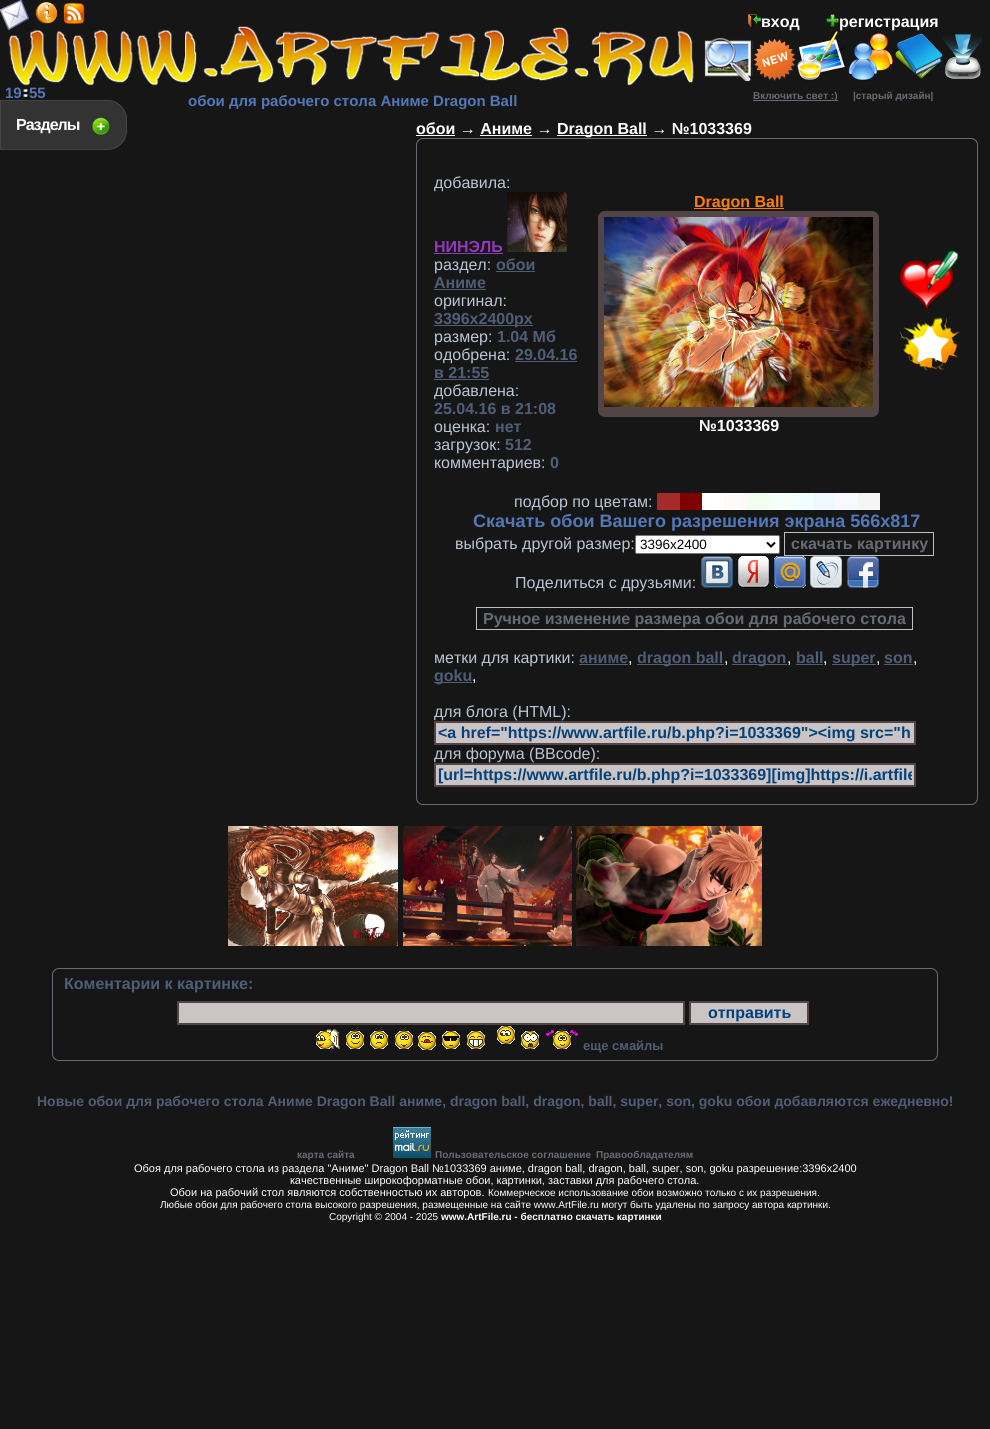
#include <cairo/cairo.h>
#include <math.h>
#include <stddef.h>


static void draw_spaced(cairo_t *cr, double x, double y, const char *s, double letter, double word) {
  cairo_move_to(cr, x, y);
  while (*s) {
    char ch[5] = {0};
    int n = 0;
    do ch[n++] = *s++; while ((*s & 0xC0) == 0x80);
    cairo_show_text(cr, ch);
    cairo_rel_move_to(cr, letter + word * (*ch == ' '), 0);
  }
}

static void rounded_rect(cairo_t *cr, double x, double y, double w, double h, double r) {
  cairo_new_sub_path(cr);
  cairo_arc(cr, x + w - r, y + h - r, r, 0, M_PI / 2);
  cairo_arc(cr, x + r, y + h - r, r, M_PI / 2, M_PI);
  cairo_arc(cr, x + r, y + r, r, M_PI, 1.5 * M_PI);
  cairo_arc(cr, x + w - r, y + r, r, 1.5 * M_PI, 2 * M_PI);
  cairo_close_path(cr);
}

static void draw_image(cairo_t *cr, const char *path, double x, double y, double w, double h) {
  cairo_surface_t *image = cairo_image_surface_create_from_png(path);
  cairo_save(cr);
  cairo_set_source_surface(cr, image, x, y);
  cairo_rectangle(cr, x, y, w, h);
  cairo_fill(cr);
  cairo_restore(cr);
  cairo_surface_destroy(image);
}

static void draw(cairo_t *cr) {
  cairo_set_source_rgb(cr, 22 / 255.0, 22 / 255.0, 22 / 255.0);
  cairo_paint(cr);
  draw_image(cr, "images/13.png", 8, 26, 686, 60);
  draw_image(cr, "images/1.png", 0, 0, 29, 30);
  draw_image(cr, "images/2.png", 35, 2, 22, 22);
  draw_image(cr, "images/3.png", 63, 2, 22, 22);
  draw_image(cr, "images/4.png", 748, 14, 13, 13);
  draw_image(cr, "images/5.png", 826, 14, 13, 13);
  draw_image(cr, "images/6.png", 23, 89, 5, 8);
  draw_image(cr, "images/7.png", 704, 37, 49, 44);
  draw_image(cr, "images/8.png", 753, 38, 43, 43);
  draw_image(cr, "images/9.png", 797, 31, 48, 50);
  draw_image(cr, "images/10.png", 848, 33, 46, 48);
  draw_image(cr, "images/11.png", 895, 33, 48, 46);
  draw_image(cr, "images/12.png", 943, 34, 40, 45);
  cairo_set_source_rgb(cr, 103 / 255.0, 108 / 255.0, 116 / 255.0);
  cairo_rectangle(cr, 753, 100, 85, 1);
  cairo_fill(cr);
  cairo_set_source_rgb(cr, 1, 1, 1);
  cairo_rectangle(cr, 416, 135, 39, 1);
  cairo_fill(cr);
  cairo_rectangle(cr, 480, 135, 52, 1);
  cairo_fill(cr);
  cairo_rectangle(cr, 557, 135, 90, 1);
  cairo_fill(cr);
  rounded_rect(cr, 416.5, 138.5, 561, 666, 6.5);
  cairo_set_source_rgb(cr, 103 / 255.0, 108 / 255.0, 116 / 255.0);
  cairo_set_line_width(cr, 1);
  cairo_stroke(cr);
  cairo_set_source_rgb(cr, 146 / 255.0, 57 / 255.0, 183 / 255.0);
  cairo_rectangle(cr, 434, 253, 69, 1);
  cairo_fill(cr);
  draw_image(cr, "images/14.png", 507, 192, 60, 60);
  cairo_set_source_rgb(cr, 79 / 255.0, 94 / 255.0, 118 / 255.0);
  cairo_rectangle(cr, 496, 271, 39, 1);
  cairo_fill(cr);
  cairo_rectangle(cr, 434, 289, 52, 1);
  cairo_fill(cr);
  cairo_rectangle(cr, 434, 325, 99, 1);
  cairo_fill(cr);
  cairo_rectangle(cr, 515, 361, 62, 1);
  cairo_fill(cr);
  cairo_rectangle(cr, 434, 379, 55, 1);
  cairo_fill(cr);
  cairo_set_source_rgb(cr, 251 / 255.0, 126 / 255.0, 6 / 255.0);
  cairo_rectangle(cr, 694, 208, 90, 1);
  cairo_fill(cr);
  cairo_set_source_rgb(cr, 83 / 255.0, 69 / 255.0, 69 / 255.0);
  rounded_rect(cr, 598, 211, 281, 206, 7);
  cairo_fill(cr);
  draw_image(cr, "images/15.png", 604, 217, 269, 190);
  draw_image(cr, "images/16.png", 900, 250, 59, 60);
  draw_image(cr, "images/17.png", 900, 317, 60, 54);
  cairo_set_source_rgb(cr, 165 / 255.0, 42 / 255.0, 42 / 255.0);
  cairo_rectangle(cr, 657, 493, 23, 17);
  cairo_fill(cr);
  cairo_set_source_rgb(cr, 128 / 255.0, 0, 0);
  cairo_rectangle(cr, 680, 493, 22, 17);
  cairo_fill(cr);
  cairo_set_source_rgb(cr, 1, 1, 1);
  cairo_rectangle(cr, 702, 493, 22, 17);
  cairo_fill(cr);
  cairo_set_source_rgb(cr, 1, 250 / 255.0, 250 / 255.0);
  cairo_rectangle(cr, 724, 493, 22, 17);
  cairo_fill(cr);
  cairo_set_source_rgb(cr, 240 / 255.0, 1, 240 / 255.0);
  cairo_rectangle(cr, 746, 493, 23, 17);
  cairo_fill(cr);
  cairo_set_source_rgb(cr, 245 / 255.0, 1, 250 / 255.0);
  cairo_rectangle(cr, 769, 493, 22, 17);
  cairo_fill(cr);
  cairo_set_source_rgb(cr, 240 / 255.0, 1, 1);
  cairo_rectangle(cr, 791, 493, 22, 17);
  cairo_fill(cr);
  cairo_set_source_rgb(cr, 240 / 255.0, 248 / 255.0, 1);
  cairo_rectangle(cr, 813, 493, 22, 17);
  cairo_fill(cr);
  cairo_set_source_rgb(cr, 248 / 255.0, 248 / 255.0, 1);
  cairo_rectangle(cr, 835, 493, 23, 17);
  cairo_fill(cr);
  cairo_set_source_rgb(cr, 245 / 255.0, 245 / 255.0, 245 / 255.0);
  cairo_rectangle(cr, 858, 493, 22, 17);
  cairo_fill(cr);
  cairo_set_source_rgb(cr, 1, 1, 1);
  rounded_rect(cr, 635.5, 535.5, 144, 18, 1.5);
  cairo_fill_preserve(cr);
  cairo_set_source_rgb(cr, 118 / 255.0, 118 / 255.0, 118 / 255.0);
  cairo_stroke(cr);
  cairo_new_path(cr);
  cairo_move_to(cr, 767, 542.5);
  cairo_line_to(cr, 771, 546.5);
  cairo_line_to(cr, 775, 542.5);
  cairo_set_source_rgb(cr, 0, 0, 0);
  cairo_set_line_width(cr, 2);
  cairo_stroke(cr);
  cairo_rectangle(cr, 784.5, 532.5, 149, 23);
  cairo_set_source_rgb(cr, 192 / 255.0, 192 / 255.0, 192 / 255.0);
  cairo_set_line_width(cr, 1);
  cairo_stroke(cr);
  draw_image(cr, "images/18.png", 701, 556, 32, 32);
  draw_image(cr, "images/19.png", 738, 556, 31, 32);
  draw_image(cr, "images/20.png", 774, 556, 32, 32);
  draw_image(cr, "images/21.png", 810, 556, 32, 32);
  draw_image(cr, "images/22.png", 847, 556, 32, 32);
  cairo_rectangle(cr, 476.5, 607.5, 436, 22);
  cairo_stroke(cr);
  cairo_set_source_rgb(cr, 79 / 255.0, 94 / 255.0, 118 / 255.0);
  cairo_rectangle(cr, 579, 664, 49, 1);
  cairo_fill(cr);
  cairo_rectangle(cr, 637, 664, 87, 1);
  cairo_fill(cr);
  cairo_rectangle(cr, 732, 664, 55, 1);
  cairo_fill(cr);
  cairo_rectangle(cr, 796, 664, 27, 1);
  cairo_fill(cr);
  cairo_rectangle(cr, 832, 664, 44, 1);
  cairo_fill(cr);
  cairo_rectangle(cr, 884, 664, 29, 1);
  cairo_fill(cr);
  cairo_rectangle(cr, 434, 682, 38, 1);
  cairo_fill(cr);
  cairo_set_source_rgb(cr, 203 / 255.0, 196 / 255.0, 196 / 255.0);
  cairo_rectangle(cr, 435, 722, 480, 22);
  cairo_fill_preserve(cr);
  cairo_set_source_rgb(cr, 83 / 255.0, 69 / 255.0, 69 / 255.0);
  cairo_set_line_width(cr, 2);
  cairo_stroke(cr);
  cairo_set_source_rgb(cr, 203 / 255.0, 196 / 255.0, 196 / 255.0);
  cairo_rectangle(cr, 435, 764, 480, 22);
  cairo_fill_preserve(cr);
  cairo_set_source_rgb(cr, 83 / 255.0, 69 / 255.0, 69 / 255.0);
  cairo_stroke(cr);
  draw_image(cr, "images/23.png", 228, 826, 170, 120);
  draw_image(cr, "images/24.png", 403, 826, 169, 120);
  draw_image(cr, "images/25.png", 576, 826, 186, 120);
  rounded_rect(cr, 52.5, 968.5, 885, 92, 6.5);
  cairo_set_source_rgb(cr, 103 / 255.0, 108 / 255.0, 116 / 255.0);
  cairo_set_line_width(cr, 1);
  cairo_stroke(cr);
  cairo_set_source_rgb(cr, 203 / 255.0, 196 / 255.0, 196 / 255.0);
  cairo_rectangle(cr, 178, 1002, 506, 22);
  cairo_fill_preserve(cr);
  cairo_set_source_rgb(cr, 83 / 255.0, 69 / 255.0, 69 / 255.0);
  cairo_set_line_width(cr, 2);
  cairo_stroke(cr);
  cairo_set_source_rgb(cr, 203 / 255.0, 196 / 255.0, 196 / 255.0);
  cairo_rectangle(cr, 690, 1002, 118, 22);
  cairo_fill_preserve(cr);
  cairo_set_source_rgb(cr, 83 / 255.0, 69 / 255.0, 69 / 255.0);
  cairo_stroke(cr);
  draw_image(cr, "images/26.png", 315, 1029, 25, 20);
  draw_image(cr, "images/27.png", 346, 1027, 18, 22);
  draw_image(cr, "images/28.png", 370, 1027, 18, 22);
  draw_image(cr, "images/29.png", 395, 1027, 18, 22);
  draw_image(cr, "images/30.png", 418, 1032, 18, 18);
  draw_image(cr, "images/31.png", 442, 1031, 18, 18);
  draw_image(cr, "images/32.png", 467, 1031, 18, 18);
  draw_image(cr, "images/33.png", 497, 1026, 18, 18);
  draw_image(cr, "images/34.png", 521, 1031, 18, 18);
  draw_image(cr, "images/35.png", 546, 1028, 32, 21);
  draw_image(cr, "images/36.png", 393, 1127, 38, 31);
  cairo_set_source_rgb(cr, 51 / 255.0, 51 / 255.0, 51 / 255.0);
  cairo_new_path(cr);
  cairo_move_to(cr, 0, 100);
  cairo_line_to(cr, 107, 100);
  cairo_curve_to(cr, 118, 100, 127, 109, 127, 120);
  cairo_line_to(cr, 127, 130);
  cairo_curve_to(cr, 127, 141, 118, 150, 107, 150);
  cairo_line_to(cr, 0, 150);
  cairo_close_path(cr);
  cairo_fill(cr);
  draw_image(cr, "images/37.png", 92, 117, 18, 18);
  cairo_new_path(cr);
  cairo_move_to(cr, 0.5, 100.5);
  cairo_line_to(cr, 107, 100.5);
  cairo_curve_to(cr, 118, 100.5, 126.5, 109, 126.5, 120);
  cairo_line_to(cr, 126.5, 130);
  cairo_curve_to(cr, 126.5, 141, 118, 149.5, 107, 149.5);
  cairo_line_to(cr, 0.5, 149.5);
  cairo_close_path(cr);
  cairo_set_source_rgb(cr, 68 / 255.0, 68 / 255.0, 68 / 255.0);
  cairo_set_line_width(cr, 1);
  cairo_stroke(cr);
  cairo_select_font_face(cr, "Liberation Sans", CAIRO_FONT_SLANT_NORMAL, CAIRO_FONT_WEIGHT_BOLD);
  cairo_set_font_size(cr, 16);
  cairo_set_source_rgb(cr, 1, 1, 1);
  cairo_move_to(cr, 761, 27);
  cairo_show_text(cr, "вход");
  cairo_move_to(cr, 839, 27);
  cairo_show_text(cr, "регистрация");
  cairo_set_font_size(cr, 15);
  cairo_set_source_rgb(cr, 82 / 255.0, 120 / 255.0, 184 / 255.0);
  cairo_move_to(cr, 5, 98);
  cairo_show_text(cr, "19");
  cairo_move_to(cr, 29, 98);
  cairo_show_text(cr, "55");
  cairo_set_font_size(cr, 10);
  cairo_set_source_rgb(cr, 103 / 255.0, 108 / 255.0, 116 / 255.0);
  cairo_move_to(cr, 753, 99);
  cairo_show_text(cr, "Включить свет :)");
  cairo_move_to(cr, 853, 99);
  cairo_show_text(cr, "|старый дизайн|");
  cairo_set_font_size(cr, 15);
  cairo_set_source_rgb(cr, 82 / 255.0, 120 / 255.0, 184 / 255.0);
  cairo_move_to(cr, 188, 106);
  cairo_show_text(cr, "обои для рабочего стола Аниме Dragon Ball");
  cairo_set_font_size(cr, 16);
  cairo_set_source_rgb(cr, 1, 1, 1);
  cairo_move_to(cr, 416, 134);
  cairo_show_text(cr, "обои → Аниме →");
  cairo_move_to(cr, 557, 134);
  cairo_show_text(cr, "Dragon Ball → №1033369");
  cairo_select_font_face(cr, "Liberation Sans", CAIRO_FONT_SLANT_NORMAL, CAIRO_FONT_WEIGHT_NORMAL);
  cairo_set_source_rgb(cr, 187 / 255.0, 197 / 255.0, 213 / 255.0);
  cairo_move_to(cr, 434, 188);
  cairo_show_text(cr, "добавилa:");
  cairo_select_font_face(cr, "Liberation Sans", CAIRO_FONT_SLANT_NORMAL, CAIRO_FONT_WEIGHT_BOLD);
  cairo_set_source_rgb(cr, 146 / 255.0, 57 / 255.0, 183 / 255.0);
  cairo_move_to(cr, 434, 252);
  cairo_show_text(cr, "НИНЭЛЬ");
  cairo_select_font_face(cr, "Liberation Sans", CAIRO_FONT_SLANT_NORMAL, CAIRO_FONT_WEIGHT_NORMAL);
  cairo_set_source_rgb(cr, 187 / 255.0, 197 / 255.0, 213 / 255.0);
  cairo_move_to(cr, 434, 270);
  cairo_show_text(cr, "раздел:");
  cairo_select_font_face(cr, "Liberation Sans", CAIRO_FONT_SLANT_NORMAL, CAIRO_FONT_WEIGHT_BOLD);
  cairo_set_source_rgb(cr, 79 / 255.0, 94 / 255.0, 118 / 255.0);
  cairo_move_to(cr, 496, 270);
  cairo_show_text(cr, "обои");
  cairo_move_to(cr, 434, 288);
  cairo_show_text(cr, "Аниме");
  cairo_select_font_face(cr, "Liberation Sans", CAIRO_FONT_SLANT_NORMAL, CAIRO_FONT_WEIGHT_NORMAL);
  cairo_set_source_rgb(cr, 187 / 255.0, 197 / 255.0, 213 / 255.0);
  cairo_move_to(cr, 434, 306);
  cairo_show_text(cr, "оригинал:");
  cairo_select_font_face(cr, "Liberation Sans", CAIRO_FONT_SLANT_NORMAL, CAIRO_FONT_WEIGHT_BOLD);
  cairo_set_source_rgb(cr, 79 / 255.0, 94 / 255.0, 118 / 255.0);
  cairo_move_to(cr, 434, 324);
  cairo_show_text(cr, "3396х2400px");
  cairo_select_font_face(cr, "Liberation Sans", CAIRO_FONT_SLANT_NORMAL, CAIRO_FONT_WEIGHT_NORMAL);
  cairo_set_source_rgb(cr, 187 / 255.0, 197 / 255.0, 213 / 255.0);
  cairo_move_to(cr, 434, 342);
  cairo_show_text(cr, "размер:");
  cairo_select_font_face(cr, "Liberation Sans", CAIRO_FONT_SLANT_NORMAL, CAIRO_FONT_WEIGHT_BOLD);
  cairo_set_source_rgb(cr, 79 / 255.0, 94 / 255.0, 118 / 255.0);
  cairo_move_to(cr, 497, 342);
  cairo_show_text(cr, "1.04 Мб");
  cairo_select_font_face(cr, "Liberation Sans", CAIRO_FONT_SLANT_NORMAL, CAIRO_FONT_WEIGHT_NORMAL);
  cairo_set_source_rgb(cr, 187 / 255.0, 197 / 255.0, 213 / 255.0);
  cairo_move_to(cr, 434, 360);
  cairo_show_text(cr, "одобрена:");
  cairo_select_font_face(cr, "Liberation Sans", CAIRO_FONT_SLANT_NORMAL, CAIRO_FONT_WEIGHT_BOLD);
  cairo_set_source_rgb(cr, 79 / 255.0, 94 / 255.0, 118 / 255.0);
  cairo_move_to(cr, 515, 360);
  cairo_show_text(cr, "29.04.16");
  cairo_move_to(cr, 434, 378);
  cairo_show_text(cr, "в 21:55");
  cairo_select_font_face(cr, "Liberation Sans", CAIRO_FONT_SLANT_NORMAL, CAIRO_FONT_WEIGHT_NORMAL);
  cairo_set_source_rgb(cr, 187 / 255.0, 197 / 255.0, 213 / 255.0);
  cairo_move_to(cr, 434, 396);
  cairo_show_text(cr, "добавлена:");
  cairo_select_font_face(cr, "Liberation Sans", CAIRO_FONT_SLANT_NORMAL, CAIRO_FONT_WEIGHT_BOLD);
  cairo_set_source_rgb(cr, 79 / 255.0, 94 / 255.0, 118 / 255.0);
  cairo_move_to(cr, 434, 414);
  cairo_show_text(cr, "25.04.16 в 21:08");
  cairo_select_font_face(cr, "Liberation Sans", CAIRO_FONT_SLANT_NORMAL, CAIRO_FONT_WEIGHT_NORMAL);
  cairo_set_source_rgb(cr, 187 / 255.0, 197 / 255.0, 213 / 255.0);
  cairo_move_to(cr, 434, 432);
  cairo_show_text(cr, "оценка:");
  cairo_select_font_face(cr, "Liberation Sans", CAIRO_FONT_SLANT_NORMAL, CAIRO_FONT_WEIGHT_BOLD);
  cairo_set_source_rgb(cr, 79 / 255.0, 94 / 255.0, 118 / 255.0);
  cairo_move_to(cr, 495, 432);
  cairo_show_text(cr, "нет");
  cairo_select_font_face(cr, "Liberation Sans", CAIRO_FONT_SLANT_NORMAL, CAIRO_FONT_WEIGHT_NORMAL);
  cairo_set_source_rgb(cr, 187 / 255.0, 197 / 255.0, 213 / 255.0);
  cairo_move_to(cr, 434, 450);
  cairo_show_text(cr, "загрузок:");
  cairo_select_font_face(cr, "Liberation Sans", CAIRO_FONT_SLANT_NORMAL, CAIRO_FONT_WEIGHT_BOLD);
  cairo_set_source_rgb(cr, 79 / 255.0, 94 / 255.0, 118 / 255.0);
  cairo_move_to(cr, 505, 450);
  cairo_show_text(cr, "512");
  cairo_select_font_face(cr, "Liberation Sans", CAIRO_FONT_SLANT_NORMAL, CAIRO_FONT_WEIGHT_NORMAL);
  cairo_set_source_rgb(cr, 187 / 255.0, 197 / 255.0, 213 / 255.0);
  cairo_move_to(cr, 434, 468);
  cairo_show_text(cr, "комментариев:");
  cairo_select_font_face(cr, "Liberation Sans", CAIRO_FONT_SLANT_NORMAL, CAIRO_FONT_WEIGHT_BOLD);
  cairo_set_source_rgb(cr, 79 / 255.0, 94 / 255.0, 118 / 255.0);
  cairo_move_to(cr, 550, 468);
  cairo_show_text(cr, "0");
  cairo_set_source_rgb(cr, 251 / 255.0, 126 / 255.0, 6 / 255.0);
  cairo_move_to(cr, 694, 207);
  cairo_show_text(cr, "Dragon Ball");
  cairo_set_source_rgb(cr, 1, 1, 1);
  cairo_move_to(cr, 699, 431);
  cairo_show_text(cr, "№1033369");
  cairo_select_font_face(cr, "Liberation Sans", CAIRO_FONT_SLANT_NORMAL, CAIRO_FONT_WEIGHT_NORMAL);
  cairo_set_source_rgb(cr, 187 / 255.0, 197 / 255.0, 213 / 255.0);
  cairo_move_to(cr, 514, 507);
  cairo_show_text(cr, "подбор по цветам:");
  cairo_select_font_face(cr, "Liberation Sans", CAIRO_FONT_SLANT_NORMAL, CAIRO_FONT_WEIGHT_BOLD);
  cairo_set_font_size(cr, 18);
  cairo_set_source_rgb(cr, 82 / 255.0, 120 / 255.0, 184 / 255.0);
  cairo_move_to(cr, 473, 527);
  cairo_show_text(cr, "Скачать обои Вашего разрешения экрана 566x817");
  cairo_select_font_face(cr, "Liberation Sans", CAIRO_FONT_SLANT_NORMAL, CAIRO_FONT_WEIGHT_NORMAL);
  cairo_set_font_size(cr, 16);
  cairo_set_source_rgb(cr, 187 / 255.0, 197 / 255.0, 213 / 255.0);
  cairo_move_to(cr, 455, 549);
  cairo_show_text(cr, "выбрать другой размер:");
  cairo_set_font_size(cr, 13.5);
  cairo_set_source_rgb(cr, 0, 0, 0);
  cairo_move_to(cr, 640, 549);
  cairo_show_text(cr, "3396x2400");
  cairo_select_font_face(cr, "Liberation Sans", CAIRO_FONT_SLANT_NORMAL, CAIRO_FONT_WEIGHT_BOLD);
  cairo_set_font_size(cr, 16);
  cairo_set_source_rgb(cr, 103 / 255.0, 108 / 255.0, 116 / 255.0);
  cairo_move_to(cr, 791, 549);
  cairo_show_text(cr, "скачать картинку");
  cairo_select_font_face(cr, "Liberation Sans", CAIRO_FONT_SLANT_NORMAL, CAIRO_FONT_WEIGHT_NORMAL);
  cairo_set_source_rgb(cr, 187 / 255.0, 197 / 255.0, 213 / 255.0);
  cairo_move_to(cr, 515, 588);
  cairo_show_text(cr, "Поделиться с друзьями:");
  cairo_select_font_face(cr, "Liberation Sans", CAIRO_FONT_SLANT_NORMAL, CAIRO_FONT_WEIGHT_BOLD);
  cairo_set_source_rgb(cr, 103 / 255.0, 108 / 255.0, 116 / 255.0);
  cairo_move_to(cr, 483, 624);
  cairo_show_text(cr, "Ручное изменение размера обои для рабочего стола");
  cairo_select_font_face(cr, "Liberation Sans", CAIRO_FONT_SLANT_NORMAL, CAIRO_FONT_WEIGHT_NORMAL);
  cairo_set_source_rgb(cr, 187 / 255.0, 197 / 255.0, 213 / 255.0);
  cairo_move_to(cr, 434, 663);
  cairo_show_text(cr, "метки для картики:");
  cairo_select_font_face(cr, "Liberation Sans", CAIRO_FONT_SLANT_NORMAL, CAIRO_FONT_WEIGHT_BOLD);
  cairo_set_source_rgb(cr, 79 / 255.0, 94 / 255.0, 118 / 255.0);
  cairo_move_to(cr, 579, 663);
  cairo_show_text(cr, "аниме");
  cairo_select_font_face(cr, "Liberation Sans", CAIRO_FONT_SLANT_NORMAL, CAIRO_FONT_WEIGHT_NORMAL);
  cairo_set_source_rgb(cr, 1, 1, 1);
  cairo_move_to(cr, 628, 663);
  cairo_show_text(cr, ",");
  cairo_select_font_face(cr, "Liberation Sans", CAIRO_FONT_SLANT_NORMAL, CAIRO_FONT_WEIGHT_BOLD);
  cairo_set_source_rgb(cr, 79 / 255.0, 94 / 255.0, 118 / 255.0);
  cairo_move_to(cr, 637, 663);
  cairo_show_text(cr, "dragon ball");
  cairo_select_font_face(cr, "Liberation Sans", CAIRO_FONT_SLANT_NORMAL, CAIRO_FONT_WEIGHT_NORMAL);
  cairo_set_source_rgb(cr, 1, 1, 1);
  cairo_move_to(cr, 724, 663);
  cairo_show_text(cr, ",");
  cairo_select_font_face(cr, "Liberation Sans", CAIRO_FONT_SLANT_NORMAL, CAIRO_FONT_WEIGHT_BOLD);
  cairo_set_source_rgb(cr, 79 / 255.0, 94 / 255.0, 118 / 255.0);
  cairo_move_to(cr, 732, 663);
  cairo_show_text(cr, "dragon");
  cairo_select_font_face(cr, "Liberation Sans", CAIRO_FONT_SLANT_NORMAL, CAIRO_FONT_WEIGHT_NORMAL);
  cairo_set_source_rgb(cr, 1, 1, 1);
  cairo_move_to(cr, 787, 663);
  cairo_show_text(cr, ",");
  cairo_select_font_face(cr, "Liberation Sans", CAIRO_FONT_SLANT_NORMAL, CAIRO_FONT_WEIGHT_BOLD);
  cairo_set_source_rgb(cr, 79 / 255.0, 94 / 255.0, 118 / 255.0);
  cairo_move_to(cr, 796, 663);
  cairo_show_text(cr, "ball");
  cairo_select_font_face(cr, "Liberation Sans", CAIRO_FONT_SLANT_NORMAL, CAIRO_FONT_WEIGHT_NORMAL);
  cairo_set_source_rgb(cr, 1, 1, 1);
  cairo_move_to(cr, 823, 663);
  cairo_show_text(cr, ",");
  cairo_select_font_face(cr, "Liberation Sans", CAIRO_FONT_SLANT_NORMAL, CAIRO_FONT_WEIGHT_BOLD);
  cairo_set_source_rgb(cr, 79 / 255.0, 94 / 255.0, 118 / 255.0);
  cairo_move_to(cr, 832, 663);
  cairo_show_text(cr, "super");
  cairo_select_font_face(cr, "Liberation Sans", CAIRO_FONT_SLANT_NORMAL, CAIRO_FONT_WEIGHT_NORMAL);
  cairo_set_source_rgb(cr, 1, 1, 1);
  cairo_move_to(cr, 876, 663);
  cairo_show_text(cr, ",");
  cairo_select_font_face(cr, "Liberation Sans", CAIRO_FONT_SLANT_NORMAL, CAIRO_FONT_WEIGHT_BOLD);
  cairo_set_source_rgb(cr, 79 / 255.0, 94 / 255.0, 118 / 255.0);
  cairo_move_to(cr, 884, 663);
  cairo_show_text(cr, "son");
  cairo_select_font_face(cr, "Liberation Sans", CAIRO_FONT_SLANT_NORMAL, CAIRO_FONT_WEIGHT_NORMAL);
  cairo_set_source_rgb(cr, 1, 1, 1);
  cairo_move_to(cr, 913, 663);
  cairo_show_text(cr, ",");
  cairo_select_font_face(cr, "Liberation Sans", CAIRO_FONT_SLANT_NORMAL, CAIRO_FONT_WEIGHT_BOLD);
  cairo_set_source_rgb(cr, 79 / 255.0, 94 / 255.0, 118 / 255.0);
  cairo_move_to(cr, 434, 681);
  cairo_show_text(cr, "goku");
  cairo_select_font_face(cr, "Liberation Sans", CAIRO_FONT_SLANT_NORMAL, CAIRO_FONT_WEIGHT_NORMAL);
  cairo_set_source_rgb(cr, 1, 1, 1);
  cairo_move_to(cr, 472, 681);
  cairo_show_text(cr, ",");
  cairo_set_source_rgb(cr, 187 / 255.0, 197 / 255.0, 213 / 255.0);
  cairo_move_to(cr, 434, 717);
  cairo_show_text(cr, "для блога (HTML):");
  cairo_select_font_face(cr, "Liberation Sans", CAIRO_FONT_SLANT_NORMAL, CAIRO_FONT_WEIGHT_BOLD);
  cairo_set_source_rgb(cr, 2 / 255.0, 65 / 255.0, 123 / 255.0);
  cairo_move_to(cr, 438, 738);
  cairo_show_text(cr, "<a href=\"https://www.artfile.ru/b.php?i=1033369\"><img src=\"h");
  cairo_select_font_face(cr, "Liberation Sans", CAIRO_FONT_SLANT_NORMAL, CAIRO_FONT_WEIGHT_NORMAL);
  cairo_set_source_rgb(cr, 187 / 255.0, 197 / 255.0, 213 / 255.0);
  cairo_move_to(cr, 434, 759);
  cairo_show_text(cr, "для форума (BBcode):");
  cairo_save(cr);
  cairo_rectangle(cr, 438, 766, 474, 18);
  cairo_clip(cr);
  cairo_select_font_face(cr, "Liberation Sans", CAIRO_FONT_SLANT_NORMAL, CAIRO_FONT_WEIGHT_BOLD);
  cairo_set_source_rgb(cr, 2 / 255.0, 65 / 255.0, 123 / 255.0);
  cairo_move_to(cr, 438, 780);
  cairo_show_text(cr, "[url=https://www.artfile.ru/b.php?i=1033369][img]https://i.artfile");
  cairo_restore(cr);
  cairo_select_font_face(cr, "Liberation Sans", CAIRO_FONT_SLANT_NORMAL, CAIRO_FONT_WEIGHT_BOLD);
  cairo_set_source_rgb(cr, 79 / 255.0, 94 / 255.0, 118 / 255.0);
  cairo_move_to(cr, 64, 989);
  cairo_show_text(cr, "Коментарии к картинке:");
  cairo_set_source_rgb(cr, 2 / 255.0, 65 / 255.0, 123 / 255.0);
  cairo_move_to(cr, 708, 1018);
  cairo_show_text(cr, "отправить");
  cairo_set_font_size(cr, 13);
  cairo_set_source_rgb(cr, 79 / 255.0, 94 / 255.0, 118 / 255.0);
  cairo_move_to(cr, 583, 1050);
  cairo_show_text(cr, "еще смайлы");
  cairo_set_font_size(cr, 14);
  cairo_move_to(cr, 37, 1106);
  cairo_show_text(cr, "Новые обои для рабочего стола Аниме Dragon Ball аниме, dragon ball, dragon, ball, super, son, goku обои добавляются ежедневно!");
  cairo_set_font_size(cr, 10);
  cairo_set_source_rgb(cr, 103 / 255.0, 108 / 255.0, 116 / 255.0);
  cairo_move_to(cr, 297, 1158);
  cairo_show_text(cr, "карта сайта");
  cairo_move_to(cr, 435, 1158);
  cairo_show_text(cr, "Пользовательское соглашение");
  cairo_move_to(cr, 596, 1158);
  cairo_show_text(cr, "Правообладателям");
  cairo_select_font_face(cr, "Liberation Sans", CAIRO_FONT_SLANT_NORMAL, CAIRO_FONT_WEIGHT_NORMAL);
  cairo_set_font_size(cr, 11);
  cairo_set_source_rgb(cr, 1, 1, 1);
  cairo_move_to(cr, 134, 1172);
  cairo_show_text(cr, "Обоя для рабочего стола из раздела \"Аниме\" Dragon Ball №1033369 аниме, dragon ball, dragon, ball, super, son, goku разрешение:3396x2400");
  cairo_move_to(cr, 290, 1184);
  cairo_show_text(cr, "качественные широкоформатные обои, картинки, заставки для рабочего стола.");
  cairo_move_to(cr, 170, 1196);
  cairo_show_text(cr, "Обои на рабочий стол являются собственностью их авторов.");
  cairo_set_font_size(cr, 10);
  cairo_move_to(cr, 488, 1196);
  cairo_show_text(cr, "Коммерческое использование обои возможно только с их разрешения.");
  cairo_move_to(cr, 160, 1208);
  cairo_show_text(cr, "Любые обои для рабочего стола высокого разрешения, размещенные на сайте www.ArtFile.ru могут быть удалены по запросу автора картинки.");
  cairo_move_to(cr, 329, 1220);
  cairo_show_text(cr, "Copyright © 2004 - 2025");
  cairo_select_font_face(cr, "Liberation Sans", CAIRO_FONT_SLANT_NORMAL, CAIRO_FONT_WEIGHT_BOLD);
  cairo_move_to(cr, 441, 1220);
  cairo_show_text(cr, "www.ArtFile.ru - бесплатно скачать картинки");
  cairo_set_font_size(cr, 16);
  draw_spaced(cr, 16, 130, "Разделы", -1, 0);
}

int main(void) {
  cairo_surface_t *surface = cairo_image_surface_create(CAIRO_FORMAT_RGB24, 990, 1429);
  cairo_t *cr = cairo_create(surface);
  cairo_font_options_t *options = cairo_font_options_create();
  cairo_font_options_set_hint_metrics(options, CAIRO_HINT_METRICS_OFF);
  cairo_font_options_set_hint_style(options, CAIRO_HINT_STYLE_NONE);
  cairo_set_font_options(cr, options);
  cairo_set_miter_limit(cr, 4);
  draw(cr);
  cairo_surface_write_to_png(surface, "out.png");
  cairo_font_options_destroy(options);
  cairo_destroy(cr);
  cairo_surface_destroy(surface);
  return 0;
}
